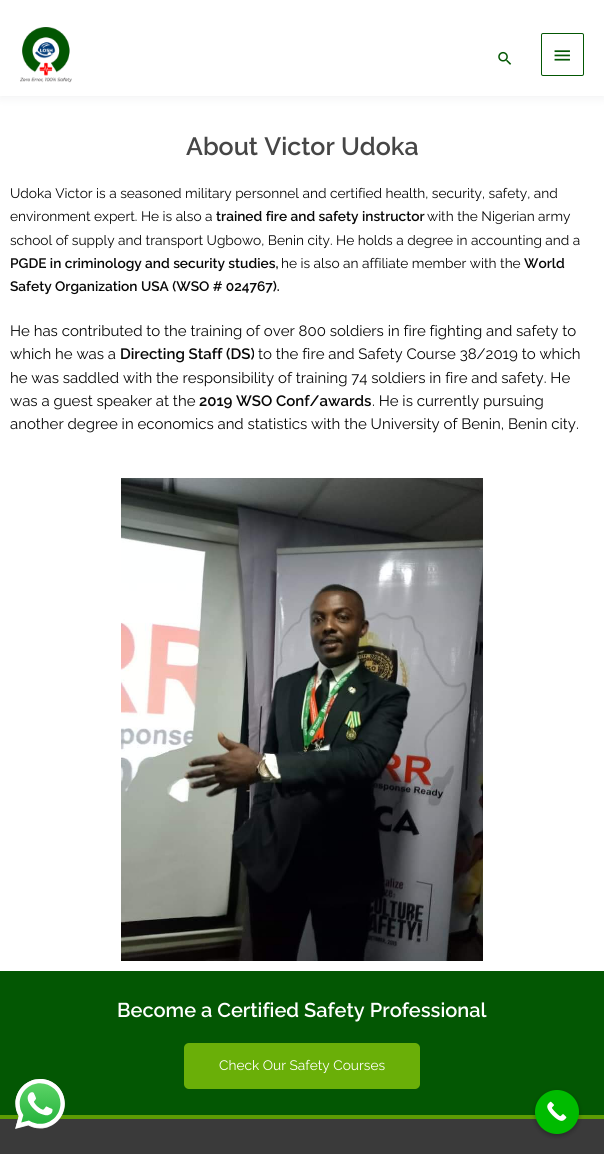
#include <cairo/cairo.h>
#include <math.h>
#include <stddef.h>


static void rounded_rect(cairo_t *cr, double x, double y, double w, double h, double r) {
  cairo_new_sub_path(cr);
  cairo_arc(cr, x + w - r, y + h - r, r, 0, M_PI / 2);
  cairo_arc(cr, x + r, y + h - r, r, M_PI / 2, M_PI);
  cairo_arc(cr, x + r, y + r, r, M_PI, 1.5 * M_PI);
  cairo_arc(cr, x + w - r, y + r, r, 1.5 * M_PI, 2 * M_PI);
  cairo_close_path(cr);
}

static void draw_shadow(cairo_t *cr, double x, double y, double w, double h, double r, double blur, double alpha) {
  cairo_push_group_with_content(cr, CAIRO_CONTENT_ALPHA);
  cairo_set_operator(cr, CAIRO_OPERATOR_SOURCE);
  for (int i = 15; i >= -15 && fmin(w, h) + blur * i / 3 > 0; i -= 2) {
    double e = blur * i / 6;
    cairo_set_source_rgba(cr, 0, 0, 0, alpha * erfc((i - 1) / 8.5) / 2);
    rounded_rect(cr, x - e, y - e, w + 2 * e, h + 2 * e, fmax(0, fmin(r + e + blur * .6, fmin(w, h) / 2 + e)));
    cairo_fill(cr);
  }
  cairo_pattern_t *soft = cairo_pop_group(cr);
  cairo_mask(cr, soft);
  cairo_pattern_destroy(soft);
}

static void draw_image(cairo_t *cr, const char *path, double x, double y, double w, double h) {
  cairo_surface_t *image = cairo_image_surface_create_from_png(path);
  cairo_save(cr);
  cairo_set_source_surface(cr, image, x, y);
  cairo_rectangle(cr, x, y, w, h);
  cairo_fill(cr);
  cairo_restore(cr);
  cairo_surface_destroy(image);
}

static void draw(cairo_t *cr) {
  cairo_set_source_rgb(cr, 1, 1, 1);
  cairo_paint(cr);
  cairo_set_source_rgb(cr, 36 / 255.0, 50 / 255.0, 66 / 255.0);
  draw_shadow(cr, 0, 2, 604, 96, 0, 5, 0.07);
  cairo_set_source_rgb(cr, 1, 1, 1);
  cairo_rectangle(cr, 0, 0, 604, 96);
  cairo_fill(cr);
  draw_image(cr, "images/1.png", 20, 27, 52, 56);
  draw_image(cr, "images/2.png", 498, 51, 14, 14);
  rounded_rect(cr, 541.5, 33.5, 42, 42, 1.5);
  cairo_set_source_rgb(cr, 3 / 255.0, 87 / 255.0, 3 / 255.0);
  cairo_set_line_width(cr, 1);
  cairo_stroke(cr);
  draw_image(cr, "images/3.png", 554, 50, 16, 11);
  draw_image(cr, "images/4.png", 121, 478, 362, 483);
  cairo_rectangle(cr, 0, 971, 604, 144);
  cairo_fill(cr);
  cairo_set_source_rgb(cr, 106 / 255.0, 175 / 255.0, 8 / 255.0);
  rounded_rect(cr, 184, 1043, 236, 46, 5);
  cairo_fill(cr);
  cairo_set_source_rgb(cr, 93 / 255.0, 156 / 255.0, 4 / 255.0);
  cairo_rectangle(cr, 0, 1115, 604, 4);
  cairo_fill(cr);
  cairo_set_source_rgb(cr, 58 / 255.0, 58 / 255.0, 58 / 255.0);
  cairo_rectangle(cr, 0, 1119, 604, 35);
  cairo_fill(cr);
  draw_image(cr, "images/5.png", 15, 1079, 50, 50);
  cairo_set_source_rgb(cr, 0, 0, 0);
  draw_shadow(cr, 535, 1092, 44, 44, 22, 2.5, 0.3);
  cairo_set_source_rgb(cr, 0, 187 / 255.0, 0);
  cairo_arc(cr, 557, 1112, 22, 0, 2 * M_PI);
  cairo_fill(cr);
  draw_image(cr, "images/6.png", 547, 1101, 20, 20);
  cairo_select_font_face(cr, "Raleway SemiBold", CAIRO_FONT_SLANT_NORMAL, CAIRO_FONT_WEIGHT_NORMAL);
  cairo_set_font_size(cr, 25);
  cairo_set_source_rgb(cr, 70 / 255.0, 70 / 255.0, 70 / 255.0);
  cairo_move_to(cr, 186, 155);
  cairo_show_text(cr, "About Victor Udoka");
  cairo_select_font_face(cr, "Raleway", CAIRO_FONT_SLANT_NORMAL, CAIRO_FONT_WEIGHT_NORMAL);
  cairo_set_font_size(cr, 13.7);
  cairo_set_source_rgb(cr, 7 / 255.0, 7 / 255.0, 7 / 255.0);
  cairo_move_to(cr, 10, 198);
  cairo_show_text(cr, "Udoka Victor is a seasoned military personnel and certified health, security, safety, and");
  cairo_move_to(cr, 10, 221);
  cairo_show_text(cr, "environment expert. He is also a");
  cairo_select_font_face(cr, "Raleway SemiBold", CAIRO_FONT_SLANT_NORMAL, CAIRO_FONT_WEIGHT_NORMAL);
  cairo_move_to(cr, 216, 221);
  cairo_show_text(cr, "trained fire and safety instructor");
  cairo_select_font_face(cr, "Raleway", CAIRO_FONT_SLANT_NORMAL, CAIRO_FONT_WEIGHT_NORMAL);
  cairo_move_to(cr, 427, 221);
  cairo_show_text(cr, "with the Nigerian army");
  cairo_move_to(cr, 10, 245);
  cairo_show_text(cr, "school of supply and transport Ugbowo, Benin city. He holds a degree in accounting and a");
  cairo_select_font_face(cr, "Raleway SemiBold", CAIRO_FONT_SLANT_NORMAL, CAIRO_FONT_WEIGHT_NORMAL);
  cairo_move_to(cr, 10, 268);
  cairo_show_text(cr, "PGDE in criminology and security studies,");
  cairo_select_font_face(cr, "Raleway", CAIRO_FONT_SLANT_NORMAL, CAIRO_FONT_WEIGHT_NORMAL);
  cairo_move_to(cr, 281, 268);
  cairo_show_text(cr, "he is also an affiliate member with the");
  cairo_select_font_face(cr, "Raleway SemiBold", CAIRO_FONT_SLANT_NORMAL, CAIRO_FONT_WEIGHT_NORMAL);
  cairo_move_to(cr, 524, 268);
  cairo_show_text(cr, "World");
  cairo_move_to(cr, 10, 291);
  cairo_show_text(cr, "Safety Organization USA (WSO # 024767).");
  cairo_select_font_face(cr, "Raleway", CAIRO_FONT_SLANT_NORMAL, CAIRO_FONT_WEIGHT_NORMAL);
  cairo_set_font_size(cr, 15);
  cairo_move_to(cr, 10, 336);
  cairo_show_text(cr, "He has contributed to the training of over 800 soldiers in fire fighting and safety to");
  cairo_move_to(cr, 10, 359);
  cairo_show_text(cr, "which he was a");
  cairo_select_font_face(cr, "Raleway SemiBold", CAIRO_FONT_SLANT_NORMAL, CAIRO_FONT_WEIGHT_NORMAL);
  cairo_move_to(cr, 120, 359);
  cairo_show_text(cr, "Directing Staff (DS)");
  cairo_select_font_face(cr, "Raleway", CAIRO_FONT_SLANT_NORMAL, CAIRO_FONT_WEIGHT_NORMAL);
  cairo_move_to(cr, 258, 359);
  cairo_show_text(cr, "to the fire and Safety Course 38/2019 to which");
  cairo_move_to(cr, 10, 383);
  cairo_show_text(cr, "he was saddled with the responsibility of training 74 soldiers in fire and safety. He");
  cairo_move_to(cr, 10, 406);
  cairo_show_text(cr, "was a guest speaker at the");
  cairo_select_font_face(cr, "Raleway SemiBold", CAIRO_FONT_SLANT_NORMAL, CAIRO_FONT_WEIGHT_NORMAL);
  cairo_move_to(cr, 199, 406);
  cairo_show_text(cr, "2019 WSO Conf/awards");
  cairo_select_font_face(cr, "Raleway", CAIRO_FONT_SLANT_NORMAL, CAIRO_FONT_WEIGHT_NORMAL);
  cairo_move_to(cr, 372, 406);
  cairo_show_text(cr, ". He is currently pursuing");
  cairo_move_to(cr, 10, 429);
  cairo_show_text(cr, "another degree in economics and statistics with the University of Benin, Benin city.");
  cairo_select_font_face(cr, "Raleway SemiBold", CAIRO_FONT_SLANT_NORMAL, CAIRO_FONT_WEIGHT_NORMAL);
  cairo_set_font_size(cr, 20);
  cairo_set_source_rgb(cr, 1, 1, 1);
  cairo_move_to(cr, 117, 1017);
  cairo_show_text(cr, "Become a Certified Safety Professional");
  cairo_select_font_face(cr, "Raleway", CAIRO_FONT_SLANT_NORMAL, CAIRO_FONT_WEIGHT_NORMAL);
  cairo_set_font_size(cr, 13.7);
  cairo_move_to(cr, 219, 1070);
  cairo_show_text(cr, "Check Our Safety Courses");
}

int main(void) {
  cairo_surface_t *surface = cairo_image_surface_create(CAIRO_FORMAT_RGB24, 604, 1154);
  cairo_t *cr = cairo_create(surface);
  cairo_font_options_t *options = cairo_font_options_create();
  cairo_font_options_set_hint_metrics(options, CAIRO_HINT_METRICS_OFF);
  cairo_font_options_set_hint_style(options, CAIRO_HINT_STYLE_NONE);
  cairo_set_font_options(cr, options);
  cairo_set_miter_limit(cr, 4);
  draw(cr);
  cairo_surface_write_to_png(surface, "out.png");
  cairo_font_options_destroy(options);
  cairo_destroy(cr);
  cairo_surface_destroy(surface);
  return 0;
}
